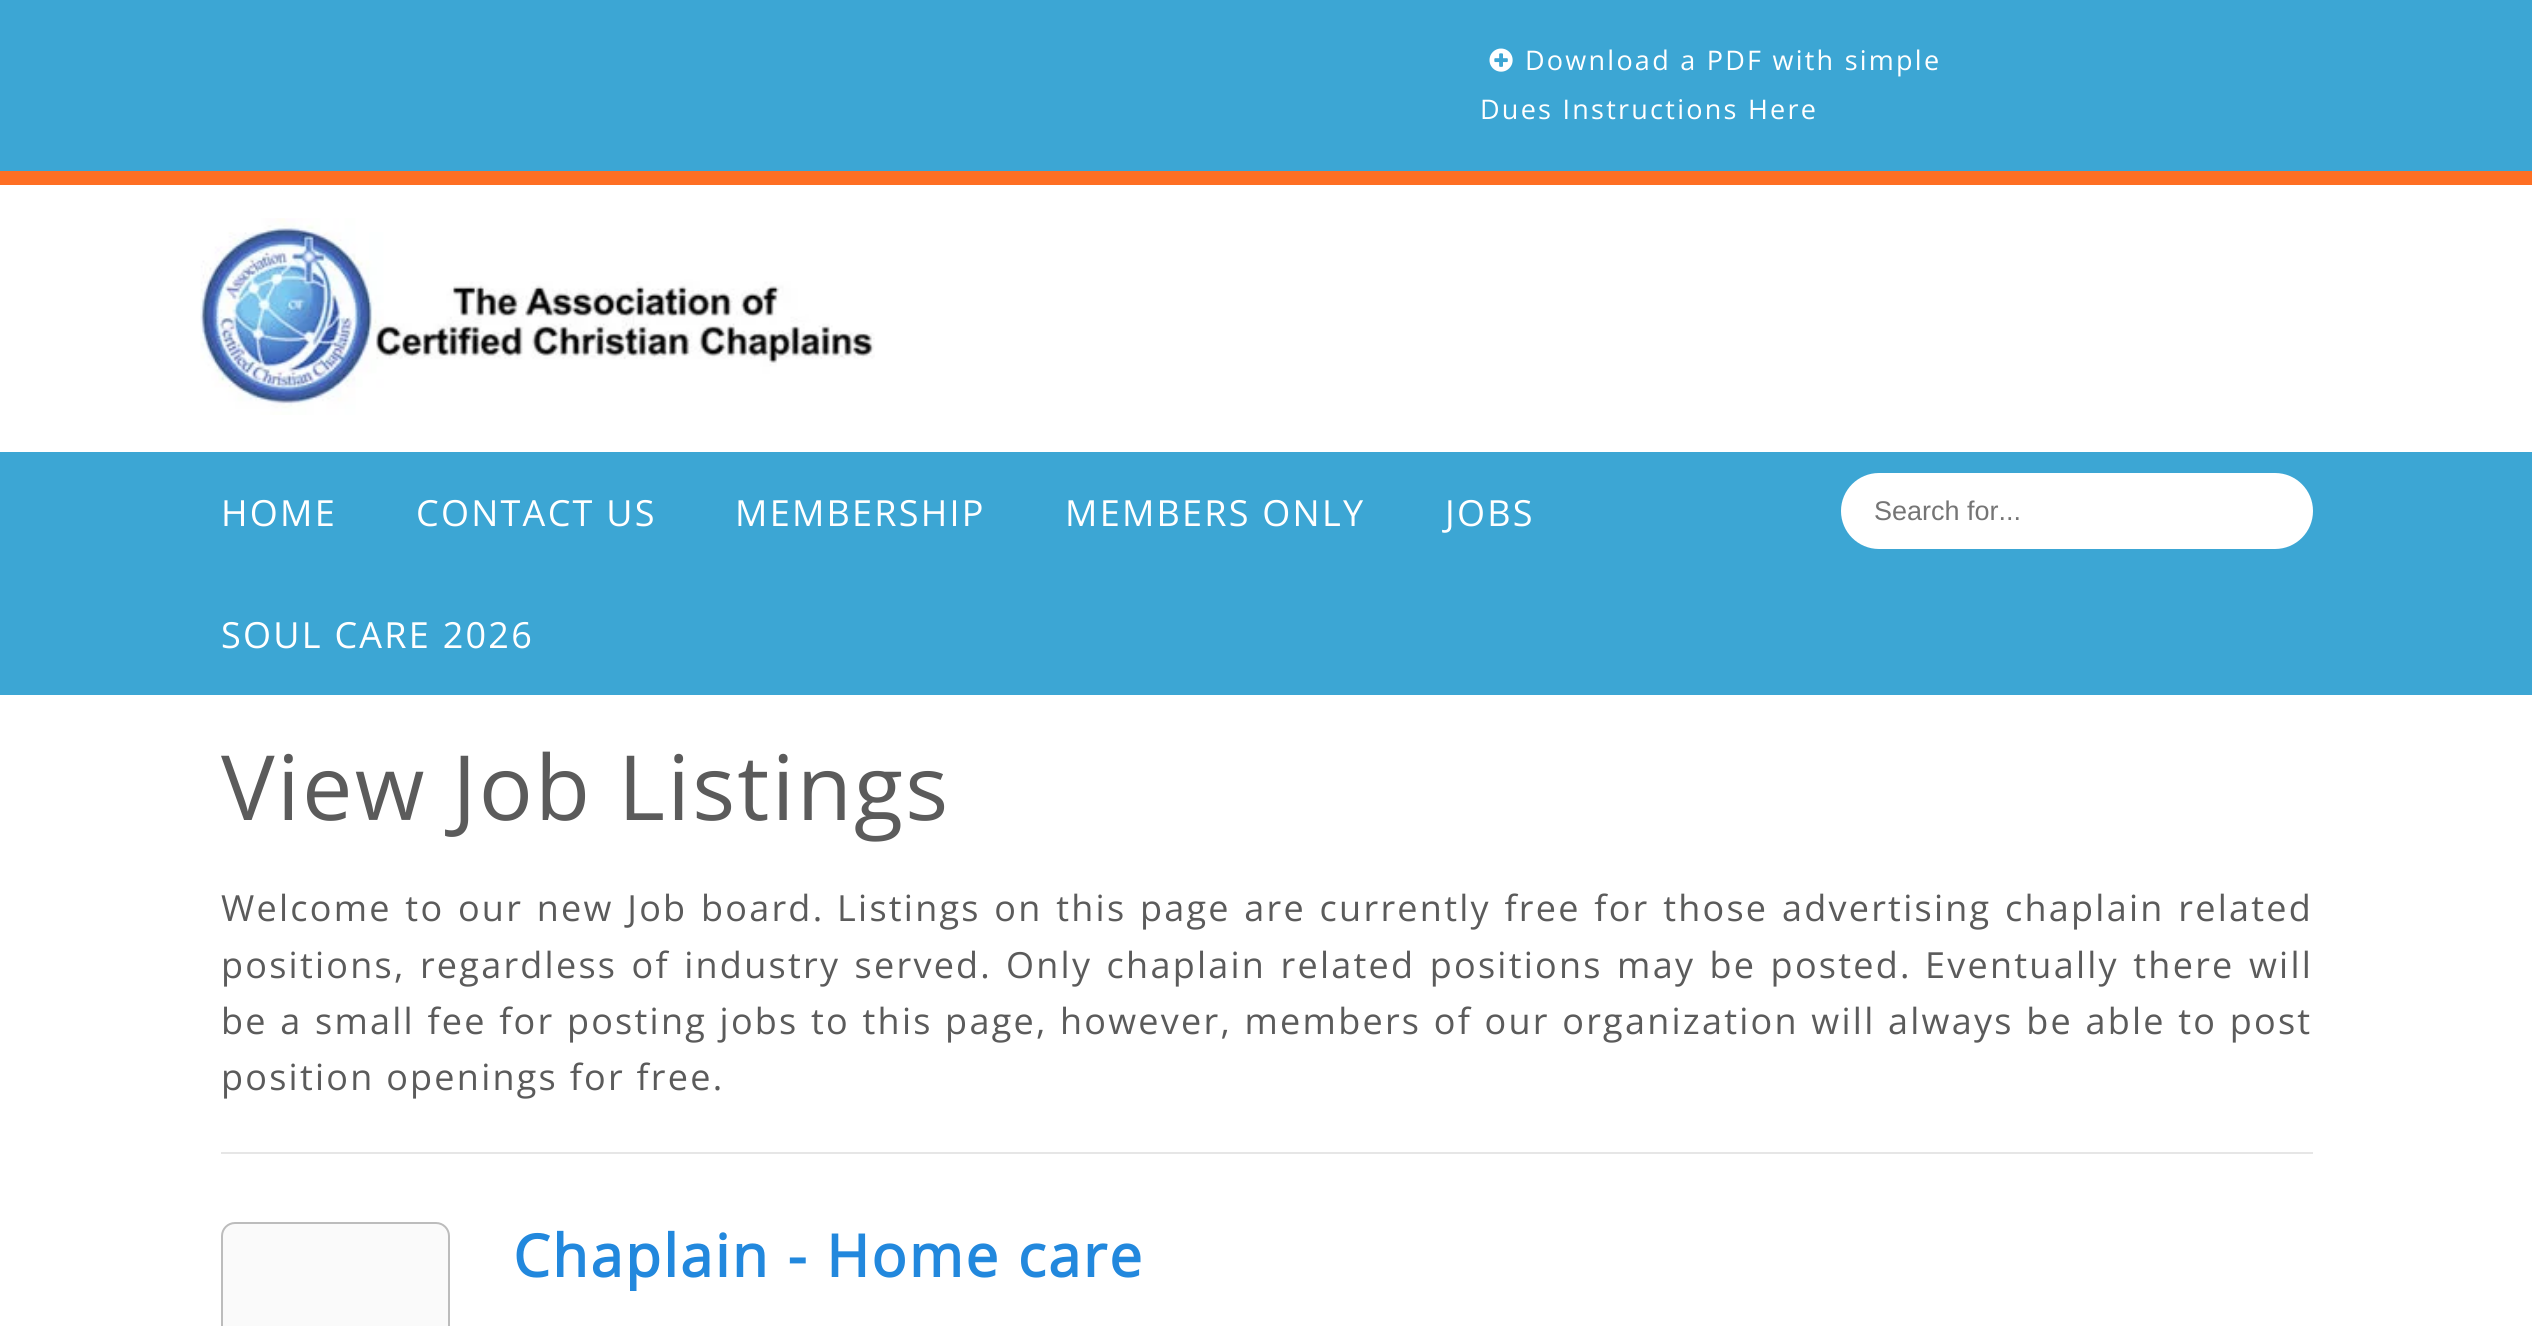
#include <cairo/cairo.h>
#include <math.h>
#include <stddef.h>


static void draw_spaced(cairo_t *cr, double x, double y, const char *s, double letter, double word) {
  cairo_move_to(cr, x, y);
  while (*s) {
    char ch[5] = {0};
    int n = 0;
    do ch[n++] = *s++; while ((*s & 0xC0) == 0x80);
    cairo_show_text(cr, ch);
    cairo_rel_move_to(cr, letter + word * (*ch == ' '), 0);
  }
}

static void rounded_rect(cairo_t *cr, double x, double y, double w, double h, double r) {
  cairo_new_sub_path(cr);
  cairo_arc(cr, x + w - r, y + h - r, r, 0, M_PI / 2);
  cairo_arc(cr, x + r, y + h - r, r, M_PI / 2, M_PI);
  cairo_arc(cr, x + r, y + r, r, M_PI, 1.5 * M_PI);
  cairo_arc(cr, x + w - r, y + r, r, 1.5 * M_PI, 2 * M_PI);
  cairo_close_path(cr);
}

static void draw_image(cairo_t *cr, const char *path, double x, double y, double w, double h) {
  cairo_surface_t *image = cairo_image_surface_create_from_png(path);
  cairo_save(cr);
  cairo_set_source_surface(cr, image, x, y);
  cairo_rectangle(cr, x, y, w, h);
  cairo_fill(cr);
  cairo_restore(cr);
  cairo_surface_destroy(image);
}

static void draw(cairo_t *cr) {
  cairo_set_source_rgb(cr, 1, 1, 1);
  cairo_paint(cr);
  cairo_set_source_rgb(cr, 60 / 255.0, 166 / 255.0, 212 / 255.0);
  cairo_rectangle(cr, 0, 0, 2532, 171);
  cairo_fill(cr);
  cairo_set_source_rgb(cr, 254 / 255.0, 111 / 255.0, 35 / 255.0);
  cairo_rectangle(cr, 0, 171, 2532, 14);
  cairo_fill(cr);
  draw_image(cr, "images/1.png", 1489, 48, 24, 24);
  draw_image(cr, "images/2.png", 200, 218, 675, 197);
  cairo_set_source_rgb(cr, 60 / 255.0, 166 / 255.0, 212 / 255.0);
  cairo_rectangle(cr, 0, 452, 2532, 243);
  cairo_fill(cr);
  cairo_set_source_rgb(cr, 1, 1, 1);
  rounded_rect(cr, 1841, 473, 472, 76, 38);
  cairo_fill(cr);
  cairo_set_source_rgb(cr, 230 / 255.0, 230 / 255.0, 230 / 255.0);
  cairo_rectangle(cr, 221, 1152, 2092, 2);
  cairo_fill(cr);
  cairo_set_source_rgb(cr, 250 / 255.0, 250 / 255.0, 250 / 255.0);
  rounded_rect(cr, 222, 1223, 227, 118, 13);
  cairo_fill_preserve(cr);
  cairo_set_source_rgb(cr, 188 / 255.0, 188 / 255.0, 188 / 255.0);
  cairo_stroke(cr);
  cairo_select_font_face(cr, "Open Sans", CAIRO_FONT_SLANT_NORMAL, CAIRO_FONT_WEIGHT_NORMAL);
  cairo_set_font_size(cr, 27);
  cairo_set_source_rgb(cr, 1, 1, 1);
  draw_spaced(cr, 1525, 70, "Download a PDF with simple", 2.25, 0);
  draw_spaced(cr, 1480, 119, "Dues Instructions Here", 2.25, 0);
  cairo_set_font_size(cr, 36);
  draw_spaced(cr, 221, 526, "HOME", 2.25, 0);
  draw_spaced(cr, 416, 526, "CONTACT US", 2.25, 0);
  draw_spaced(cr, 735, 526, "MEMBERSHIP", 2.25, 0);
  draw_spaced(cr, 1065, 526, "MEMBERS ONLY", 2.25, 0);
  draw_spaced(cr, 1445, 526, "JOBS", 2.25, 0);
  draw_spaced(cr, 221, 648, "SOUL CARE 2026", 2.25, 0);
  cairo_select_font_face(cr, "Liberation Sans", CAIRO_FONT_SLANT_NORMAL, CAIRO_FONT_WEIGHT_NORMAL);
  cairo_set_font_size(cr, 27);
  cairo_set_source_rgb(cr, 117 / 255.0, 117 / 255.0, 117 / 255.0);
  cairo_move_to(cr, 1874, 520);
  cairo_show_text(cr, "Search for...");
  cairo_select_font_face(cr, "Open Sans", CAIRO_FONT_SLANT_NORMAL, CAIRO_FONT_WEIGHT_NORMAL);
  cairo_set_font_size(cr, 90);
  cairo_set_source_rgb(cr, 91 / 255.0, 91 / 255.0, 91 / 255.0);
  draw_spaced(cr, 221, 820, "View Job Listings", 2.25, 0);
  cairo_set_font_size(cr, 36);
  draw_spaced(cr, 221, 921, "Welcome to our new Job board.", 2.25, 2);
  draw_spaced(cr, 837, 921, "Listings on this page are currently free for those advertising chaplain related", 2.25, 2);
  draw_spaced(cr, 221, 978, "positions, regardless of industry served.", 2.25, 2.75);
  draw_spaced(cr, 1006, 978, "Only chaplain related positions may be posted.", 2.25, 2.75);
  draw_spaced(cr, 1925, 978, "Eventually there will", 2.25, 2.75);
  draw_spaced(cr, 221, 1034, "be a small fee for posting jobs to this page, however, members of our organization will always be able to post", 2.25, 0.9);
  draw_spaced(cr, 221, 1090, "position openings for free.", 2.25, 0);
  cairo_select_font_face(cr, "Open Sans", CAIRO_FONT_SLANT_NORMAL, CAIRO_FONT_WEIGHT_BOLD);
  cairo_set_font_size(cr, 58.5);
  cairo_set_source_rgb(cr, 34 / 255.0, 136 / 255.0, 221 / 255.0);
  draw_spaced(cr, 513, 1277, "Chaplain - Home care", 2.25, 0);
}

int main(void) {
  cairo_surface_t *surface = cairo_image_surface_create(CAIRO_FORMAT_RGB24, 2532, 1326);
  cairo_t *cr = cairo_create(surface);
  cairo_font_options_t *options = cairo_font_options_create();
  cairo_font_options_set_hint_metrics(options, CAIRO_HINT_METRICS_OFF);
  cairo_font_options_set_hint_style(options, CAIRO_HINT_STYLE_NONE);
  cairo_set_font_options(cr, options);
  cairo_set_miter_limit(cr, 4);
  draw(cr);
  cairo_surface_write_to_png(surface, "out.png");
  cairo_font_options_destroy(options);
  cairo_destroy(cr);
  cairo_surface_destroy(surface);
  return 0;
}
